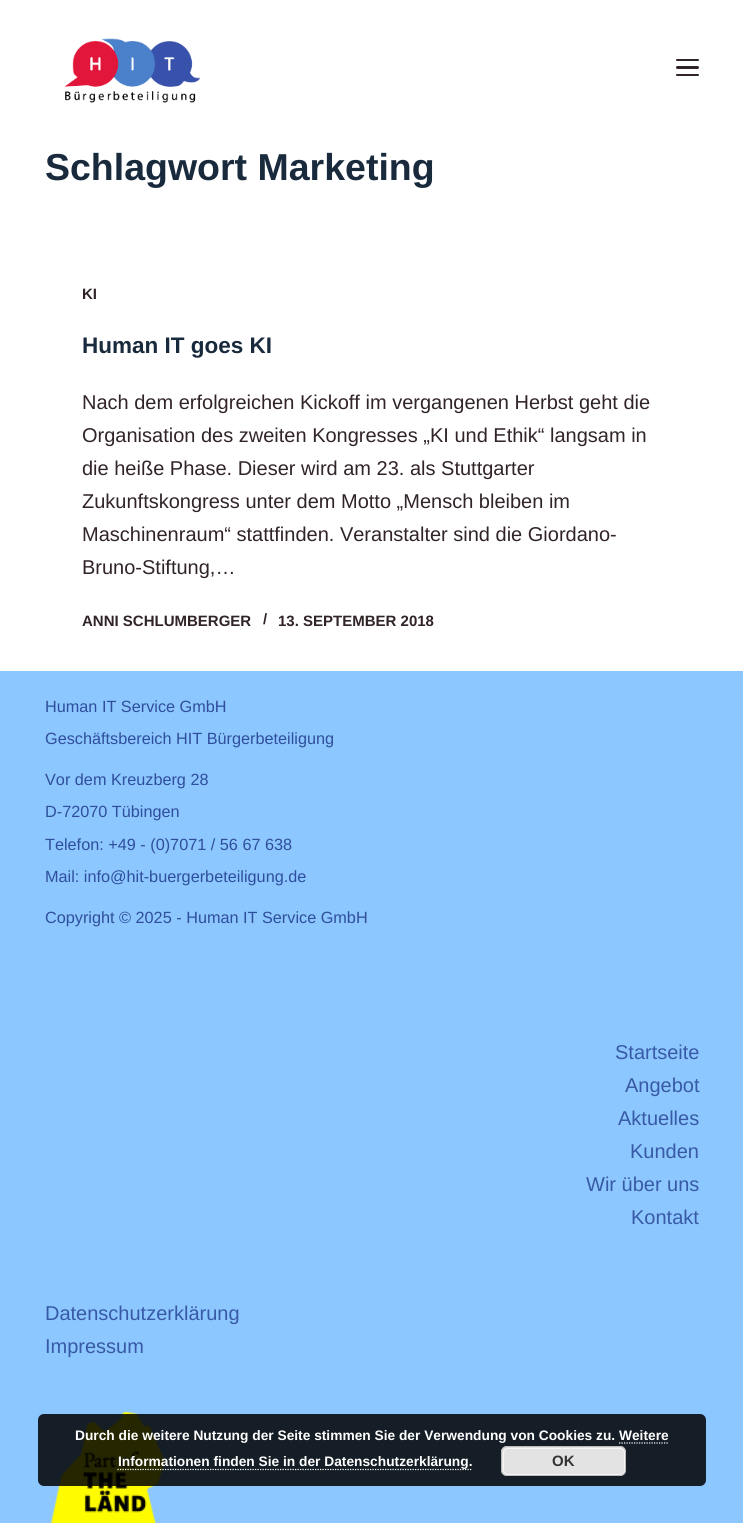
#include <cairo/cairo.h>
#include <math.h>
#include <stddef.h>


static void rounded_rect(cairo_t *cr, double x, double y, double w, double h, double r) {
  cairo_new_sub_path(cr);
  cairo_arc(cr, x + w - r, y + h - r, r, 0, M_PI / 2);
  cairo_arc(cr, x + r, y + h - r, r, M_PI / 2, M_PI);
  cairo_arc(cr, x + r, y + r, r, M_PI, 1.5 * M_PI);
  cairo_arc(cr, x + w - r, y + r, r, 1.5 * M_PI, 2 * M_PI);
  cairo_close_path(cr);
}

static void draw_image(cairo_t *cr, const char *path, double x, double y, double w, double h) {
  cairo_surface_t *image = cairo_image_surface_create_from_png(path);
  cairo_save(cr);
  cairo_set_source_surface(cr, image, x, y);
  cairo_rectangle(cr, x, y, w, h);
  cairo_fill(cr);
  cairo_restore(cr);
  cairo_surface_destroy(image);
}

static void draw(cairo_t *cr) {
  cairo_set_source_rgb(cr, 1, 1, 1);
  cairo_paint(cr);
  draw_image(cr, "images/1.png", 64, 38, 137, 65);
  cairo_set_source_rgb(cr, 49 / 255.0, 36 / 255.0, 39 / 255.0);
  rounded_rect(cr, 676, 59, 23, 2, 1);
  cairo_fill(cr);
  rounded_rect(cr, 676, 66, 23, 3, 1.5);
  cairo_fill(cr);
  rounded_rect(cr, 676, 74, 23, 2, 1);
  cairo_fill(cr);
  cairo_set_source_rgb(cr, 140 / 255.0, 199 / 255.0, 1);
  cairo_rectangle(cr, 0, 671, 743, 852);
  cairo_fill(cr);
  draw_image(cr, "images/2.png", 51, 1412, 115, 111);
  cairo_set_source_rgba(cr, 0, 0, 0, 0.85);
  rounded_rect(cr, 38, 1414, 668, 72, 6);
  cairo_fill(cr);
  cairo_new_path(cr);
  cairo_move_to(cr, 619, 1443);
  cairo_line_to(cr, 669, 1443);
  cairo_set_source_rgb(cr, 1, 1, 1);
  cairo_set_line_width(cr, 1.2);
  cairo_set_dash(cr, (double[]){1.25, 1.25}, 2, 0);
  cairo_stroke(cr);
  cairo_new_path(cr);
  cairo_move_to(cr, 117.5, 1469.5);
  cairo_line_to(cr, 472.5, 1469.5);
  cairo_stroke(cr);
  cairo_set_source_rgb(cr, 227 / 255.0, 227 / 255.0, 227 / 255.0);
  rounded_rect(cr, 501, 1446, 125, 30, 6);
  cairo_fill(cr);
  rounded_rect(cr, 503.5, 1448.5, 121, 26, 4.5);
  cairo_set_source_rgb(cr, 246 / 255.0, 246 / 255.0, 246 / 255.0);
  cairo_set_line_width(cr, 1);
  cairo_set_dash(cr, NULL, 0, 0);
  cairo_stroke(cr);
  rounded_rect(cr, 501.5, 1446.5, 124, 29, 5.5);
  cairo_set_source_rgb(cr, 187 / 255.0, 187 / 255.0, 187 / 255.0);
  cairo_stroke(cr);
  cairo_select_font_face(cr, "Liberation Sans", CAIRO_FONT_SLANT_NORMAL, CAIRO_FONT_WEIGHT_BOLD);
  cairo_set_font_size(cr, 37.5);
  cairo_set_source_rgb(cr, 25 / 255.0, 42 / 255.0, 61 / 255.0);
  cairo_move_to(cr, 45, 180);
  cairo_show_text(cr, "Schlagwort Marketing");
  cairo_set_font_size(cr, 15);
  cairo_set_source_rgb(cr, 49 / 255.0, 36 / 255.0, 39 / 255.0);
  cairo_move_to(cr, 82, 299);
  cairo_show_text(cr, "KI");
  cairo_set_font_size(cr, 22.5);
  cairo_set_source_rgb(cr, 25 / 255.0, 42 / 255.0, 61 / 255.0);
  cairo_move_to(cr, 82, 353);
  cairo_show_text(cr, "Human IT goes KI");
  cairo_select_font_face(cr, "Liberation Sans", CAIRO_FONT_SLANT_NORMAL, CAIRO_FONT_WEIGHT_NORMAL);
  cairo_set_font_size(cr, 20);
  cairo_set_source_rgb(cr, 49 / 255.0, 36 / 255.0, 39 / 255.0);
  cairo_move_to(cr, 82, 409);
  cairo_show_text(cr, "Nach dem erfolgreichen Kickoff im vergangenen Herbst geht die");
  cairo_move_to(cr, 82, 442);
  cairo_show_text(cr, "Organisation des zweiten Kongresses „KI und Ethik“ langsam in");
  cairo_move_to(cr, 82, 475);
  cairo_show_text(cr, "die heiße Phase. Dieser wird am 23. als Stuttgarter");
  cairo_move_to(cr, 82, 508);
  cairo_show_text(cr, "Zukunftskongress unter dem Motto „Mensch bleiben im");
  cairo_move_to(cr, 82, 541);
  cairo_show_text(cr, "Maschinenraum“ stattfinden. Veranstalter sind die Giordano-");
  cairo_move_to(cr, 82, 574);
  cairo_show_text(cr, "Bruno-Stiftung,…");
  cairo_select_font_face(cr, "Liberation Sans", CAIRO_FONT_SLANT_NORMAL, CAIRO_FONT_WEIGHT_BOLD);
  cairo_set_font_size(cr, 15);
  cairo_move_to(cr, 82, 626);
  cairo_show_text(cr, "ANNI SCHLUMBERGER");
  cairo_move_to(cr, 263, 624);
  cairo_show_text(cr, "/");
  cairo_move_to(cr, 278, 626);
  cairo_show_text(cr, "13. SEPTEMBER 2018");
  cairo_select_font_face(cr, "Liberation Sans", CAIRO_FONT_SLANT_NORMAL, CAIRO_FONT_WEIGHT_NORMAL);
  cairo_set_font_size(cr, 16.25);
  cairo_set_source_rgb(cr, 47 / 255.0, 78 / 255.0, 156 / 255.0);
  cairo_move_to(cr, 45, 712);
  cairo_show_text(cr, "Human IT Service GmbH");
  cairo_move_to(cr, 45, 744);
  cairo_show_text(cr, "Geschäftsbereich HIT Bürgerbeteiligung");
  cairo_move_to(cr, 45, 785);
  cairo_show_text(cr, "Vor dem Kreuzberg 28");
  cairo_move_to(cr, 45, 817);
  cairo_show_text(cr, "D-72070 Tübingen");
  cairo_move_to(cr, 45, 850);
  cairo_show_text(cr, "Telefon: +49 - (0)7071 / 56 67 638");
  cairo_move_to(cr, 45, 882);
  cairo_show_text(cr, "Mail: info@hit-buergerbeteiligung.de");
  cairo_move_to(cr, 45, 923);
  cairo_show_text(cr, "Copyright © 2025 - Human IT Service GmbH");
  cairo_set_font_size(cr, 20);
  cairo_set_source_rgb(cr, 56 / 255.0, 90 / 255.0, 166 / 255.0);
  cairo_move_to(cr, 615, 1059);
  cairo_show_text(cr, "Startseite");
  cairo_move_to(cr, 625, 1092);
  cairo_show_text(cr, "Angebot");
  cairo_move_to(cr, 618, 1125);
  cairo_show_text(cr, "Aktuelles");
  cairo_move_to(cr, 630, 1158);
  cairo_show_text(cr, "Kunden");
  cairo_move_to(cr, 586, 1191);
  cairo_show_text(cr, "Wir über uns");
  cairo_move_to(cr, 631, 1224);
  cairo_show_text(cr, "Kontakt");
  cairo_move_to(cr, 45, 1320);
  cairo_show_text(cr, "Datenschutzerklärung");
  cairo_move_to(cr, 45, 1353);
  cairo_show_text(cr, "Impressum");
  cairo_select_font_face(cr, "Liberation Sans", CAIRO_FONT_SLANT_NORMAL, CAIRO_FONT_WEIGHT_BOLD);
  cairo_set_font_size(cr, 13.75);
  cairo_set_source_rgb(cr, 1, 1, 1);
  cairo_move_to(cr, 75, 1440);
  cairo_show_text(cr, "Durch die weitere Nutzung der Seite stimmen Sie der Verwendung von Cookies zu. Weitere");
  cairo_move_to(cr, 118, 1466);
  cairo_show_text(cr, "Informationen finden Sie in der Datenschutzerklärung.");
  cairo_set_font_size(cr, 15);
  cairo_set_source_rgb(cr, 51 / 255.0, 51 / 255.0, 51 / 255.0);
  cairo_move_to(cr, 552, 1466);
  cairo_show_text(cr, "OK");
}

int main(void) {
  cairo_surface_t *surface = cairo_image_surface_create(CAIRO_FORMAT_RGB24, 743, 1523);
  cairo_t *cr = cairo_create(surface);
  cairo_font_options_t *options = cairo_font_options_create();
  cairo_font_options_set_hint_metrics(options, CAIRO_HINT_METRICS_OFF);
  cairo_font_options_set_hint_style(options, CAIRO_HINT_STYLE_NONE);
  cairo_set_font_options(cr, options);
  cairo_set_miter_limit(cr, 4);
  draw(cr);
  cairo_surface_write_to_png(surface, "out.png");
  cairo_font_options_destroy(options);
  cairo_destroy(cr);
  cairo_surface_destroy(surface);
  return 0;
}
